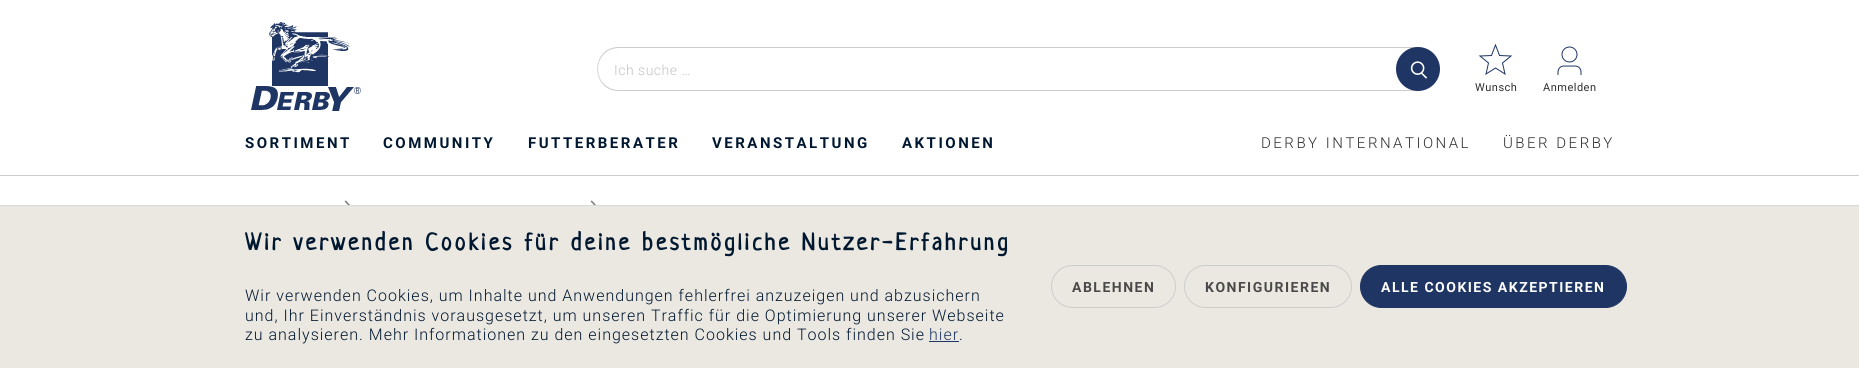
#include <cairo/cairo.h>
#include <math.h>
#include <stddef.h>


static void draw_spaced(cairo_t *cr, double x, double y, const char *s, double letter, double word) {
  cairo_move_to(cr, x, y);
  while (*s) {
    char ch[5] = {0};
    int n = 0;
    do ch[n++] = *s++; while ((*s & 0xC0) == 0x80);
    cairo_show_text(cr, ch);
    cairo_rel_move_to(cr, letter + word * (*ch == ' '), 0);
  }
}

static void rounded_rect(cairo_t *cr, double x, double y, double w, double h, double r) {
  cairo_new_sub_path(cr);
  cairo_arc(cr, x + w - r, y + h - r, r, 0, M_PI / 2);
  cairo_arc(cr, x + r, y + h - r, r, M_PI / 2, M_PI);
  cairo_arc(cr, x + r, y + r, r, M_PI, 1.5 * M_PI);
  cairo_arc(cr, x + w - r, y + r, r, 1.5 * M_PI, 2 * M_PI);
  cairo_close_path(cr);
}

static void draw_image(cairo_t *cr, const char *path, double x, double y, double w, double h) {
  cairo_surface_t *image = cairo_image_surface_create_from_png(path);
  cairo_save(cr);
  cairo_set_source_surface(cr, image, x, y);
  cairo_rectangle(cr, x, y, w, h);
  cairo_fill(cr);
  cairo_restore(cr);
  cairo_surface_destroy(image);
}

static void draw(cairo_t *cr) {
  cairo_set_source_rgb(cr, 1, 1, 1);
  cairo_paint(cr);
  draw_image(cr, "images/1.png", 251, 22, 110, 89);
  cairo_set_source_rgb(cr, 205 / 255.0, 205 / 255.0, 205 / 255.0);
  cairo_set_fill_rule(cr, CAIRO_FILL_RULE_EVEN_ODD);
  cairo_new_path(cr);
  cairo_move_to(cr, 619, 47);
  cairo_line_to(cr, 1412, 47);
  cairo_curve_to(cr, 1436, 47, 1442, 80, 1421, 89);
  cairo_curve_to(cr, 1418, 90, 1415, 91, 1412, 91);
  cairo_line_to(cr, 619, 91);
  cairo_curve_to(cr, 590, 91, 590, 47, 619, 47);
  cairo_close_path(cr);
  cairo_move_to(cr, 619, 48);
  cairo_line_to(cr, 1412, 48);
  cairo_curve_to(cr, 1424, 48, 1434, 57, 1434, 69);
  cairo_curve_to(cr, 1434, 81, 1424, 90, 1412, 90);
  cairo_line_to(cr, 619, 90);
  cairo_curve_to(cr, 607, 90, 598, 81, 598, 69);
  cairo_curve_to(cr, 598, 57, 607, 48, 619, 48);
  cairo_close_path(cr);
  cairo_fill(cr);
  cairo_set_source_rgb(cr, 31 / 255.0, 54 / 255.0, 100 / 255.0);
  cairo_arc(cr, 1418, 69, 22, 0, 2 * M_PI);
  cairo_fill(cr);
  draw_image(cr, "images/2.png", 1410, 61, 18, 18);
  cairo_new_path(cr);
  cairo_move_to(cr, 1511, 56);
  cairo_line_to(cr, 1499.5, 55.5);
  cairo_line_to(cr, 1495.5, 45);
  cairo_line_to(cr, 1491.5, 55.5);
  cairo_line_to(cr, 1480, 56);
  cairo_line_to(cr, 1488.5, 63);
  cairo_line_to(cr, 1486, 74);
  cairo_line_to(cr, 1495.5, 68);
  cairo_line_to(cr, 1505, 74);
  cairo_line_to(cr, 1502.5, 63);
  cairo_close_path(cr);
  cairo_set_line_width(cr, 1);
  cairo_stroke(cr);
  draw_image(cr, "images/3.png", 1557, 46, 25, 29);
  cairo_set_source_rgb(cr, 205 / 255.0, 205 / 255.0, 205 / 255.0);
  cairo_rectangle(cr, 0, 175, 1859, 1);
  cairo_fill(cr);
  draw_image(cr, "images/4.png", 344, 200, 6, 5);
  draw_image(cr, "images/4.png", 590, 200, 6, 5);
  cairo_set_source_rgb(cr, 235 / 255.0, 232 / 255.0, 225 / 255.0);
  cairo_rectangle(cr, 0, 206, 1859, 162);
  cairo_fill(cr);
  cairo_set_source_rgb(cr, 216 / 255.0, 216 / 255.0, 216 / 255.0);
  cairo_rectangle(cr, 0, 205, 1859, 1);
  cairo_fill(cr);
  cairo_set_source_rgb(cr, 31 / 255.0, 54 / 255.0, 100 / 255.0);
  cairo_rectangle(cr, 929, 341, 30, 1);
  cairo_fill(cr);
  rounded_rect(cr, 1051.5, 265.5, 124, 42, 21);
  cairo_set_source_rgb(cr, 205 / 255.0, 205 / 255.0, 205 / 255.0);
  cairo_stroke(cr);
  rounded_rect(cr, 1184.5, 265.5, 167, 42, 21);
  cairo_stroke(cr);
  cairo_set_source_rgb(cr, 31 / 255.0, 54 / 255.0, 100 / 255.0);
  rounded_rect(cr, 1360.5, 265.5, 266, 42, 21);
  cairo_fill_preserve(cr);
  cairo_stroke(cr);
  cairo_select_font_face(cr, "Roboto Light", CAIRO_FONT_SLANT_NORMAL, CAIRO_FONT_WEIGHT_NORMAL);
  cairo_set_font_size(cr, 14);
  cairo_set_source_rgb(cr, 195 / 255.0, 195 / 255.0, 195 / 255.0);
  draw_spaced(cr, 614, 75, "Ich suche …", 0.5, 0);
  cairo_select_font_face(cr, "Roboto", CAIRO_FONT_SLANT_NORMAL, CAIRO_FONT_WEIGHT_NORMAL);
  cairo_set_font_size(cr, 11);
  cairo_set_source_rgb(cr, 47 / 255.0, 47 / 255.0, 47 / 255.0);
  draw_spaced(cr, 1475, 91, "Wunsch", 0.5, 0);
  draw_spaced(cr, 1543, 91, "Anmelden", 0.5, 0);
  cairo_select_font_face(cr, "Roboto", CAIRO_FONT_SLANT_NORMAL, CAIRO_FONT_WEIGHT_BOLD);
  cairo_set_font_size(cr, 15);
  cairo_set_source_rgb(cr, 0, 23 / 255.0, 48 / 255.0);
  draw_spaced(cr, 245, 148, "SORTIMENT", 2.5, 0);
  draw_spaced(cr, 383, 148, "COMMUNITY", 2.5, 0);
  draw_spaced(cr, 528, 148, "FUTTERBERATER", 2.5, 0);
  draw_spaced(cr, 712, 148, "VERANSTALTUNG", 2.5, 0);
  draw_spaced(cr, 902, 148, "AKTIONEN", 2.5, 0);
  cairo_select_font_face(cr, "Roboto Light", CAIRO_FONT_SLANT_NORMAL, CAIRO_FONT_WEIGHT_NORMAL);
  cairo_set_source_rgb(cr, 47 / 255.0, 47 / 255.0, 47 / 255.0);
  draw_spaced(cr, 1261, 148, "DERBY INTERNATIONAL", 2.5, 0);
  draw_spaced(cr, 1503, 148, "ÜBER DERBY", 2.5, 0);
  cairo_select_font_face(cr, "Neucha", CAIRO_FONT_SLANT_NORMAL, CAIRO_FONT_WEIGHT_BOLD);
  cairo_set_font_size(cr, 24);
  cairo_set_source_rgb(cr, 0, 23 / 255.0, 48 / 255.0);
  draw_spaced(cr, 245, 250, "Wir verwenden Cookies für deine bestmögliche Nutzer-Erfahrung", 3.12, 0);
  cairo_select_font_face(cr, "Roboto Light", CAIRO_FONT_SLANT_NORMAL, CAIRO_FONT_WEIGHT_NORMAL);
  cairo_set_font_size(cr, 16);
  draw_spaced(cr, 245, 301, "Wir verwenden Cookies, um Inhalte und Anwendungen fehlerfrei anzuzeigen und abzusichern", 1, 0);
  draw_spaced(cr, 245, 321, "und, Ihr Einverständnis vorausgesetzt, um unseren Traffic für die Optimierung unserer Webseite", 1, 0);
  draw_spaced(cr, 245, 340, "zu analysieren. Mehr Informationen zu den eingesetzten Cookies und Tools finden Sie", 1, 0);
  cairo_set_source_rgb(cr, 31 / 255.0, 54 / 255.0, 100 / 255.0);
  draw_spaced(cr, 929, 340, "hier", 1, 0);
  cairo_set_source_rgb(cr, 0, 23 / 255.0, 48 / 255.0);
  draw_spaced(cr, 959, 340, ".", 1, 0);
  cairo_select_font_face(cr, "Roboto", CAIRO_FONT_SLANT_NORMAL, CAIRO_FONT_WEIGHT_BOLD);
  cairo_set_font_size(cr, 14);
  cairo_set_source_rgb(cr, 73 / 255.0, 73 / 255.0, 73 / 255.0);
  draw_spaced(cr, 1072, 292, "ABLEHNEN", 1.5, 0);
  draw_spaced(cr, 1205, 292, "KONFIGURIEREN", 1.5, 0);
  cairo_set_source_rgb(cr, 1, 1, 1);
  draw_spaced(cr, 1381, 292, "ALLE COOKIES AKZEPTIEREN", 1.5, 0);
}

int main(void) {
  cairo_surface_t *surface = cairo_image_surface_create(CAIRO_FORMAT_RGB24, 1859, 368);
  cairo_t *cr = cairo_create(surface);
  cairo_font_options_t *options = cairo_font_options_create();
  cairo_font_options_set_hint_metrics(options, CAIRO_HINT_METRICS_OFF);
  cairo_font_options_set_hint_style(options, CAIRO_HINT_STYLE_NONE);
  cairo_set_font_options(cr, options);
  cairo_set_miter_limit(cr, 4);
  draw(cr);
  cairo_surface_write_to_png(surface, "out.png");
  cairo_font_options_destroy(options);
  cairo_destroy(cr);
  cairo_surface_destroy(surface);
  return 0;
}
